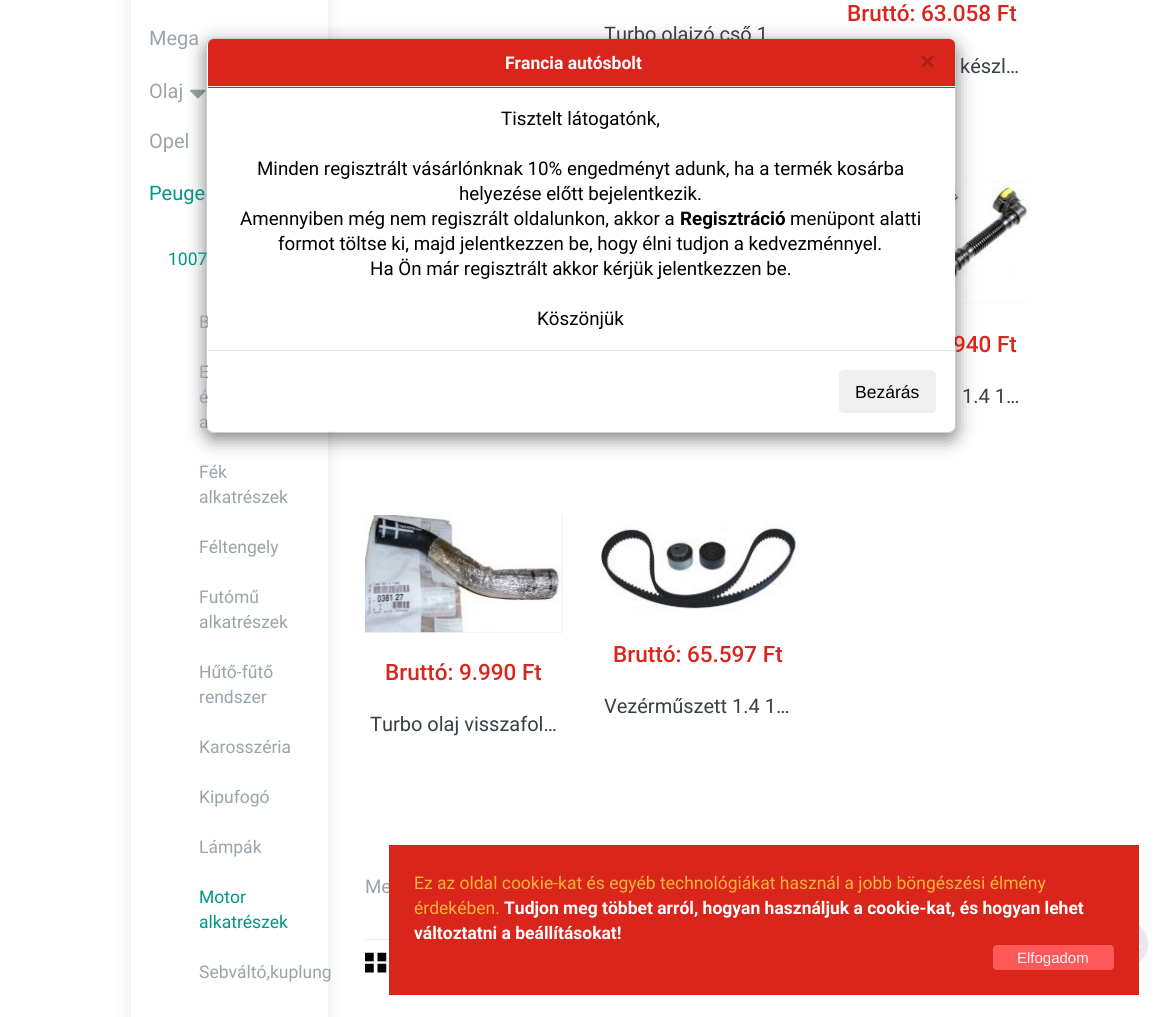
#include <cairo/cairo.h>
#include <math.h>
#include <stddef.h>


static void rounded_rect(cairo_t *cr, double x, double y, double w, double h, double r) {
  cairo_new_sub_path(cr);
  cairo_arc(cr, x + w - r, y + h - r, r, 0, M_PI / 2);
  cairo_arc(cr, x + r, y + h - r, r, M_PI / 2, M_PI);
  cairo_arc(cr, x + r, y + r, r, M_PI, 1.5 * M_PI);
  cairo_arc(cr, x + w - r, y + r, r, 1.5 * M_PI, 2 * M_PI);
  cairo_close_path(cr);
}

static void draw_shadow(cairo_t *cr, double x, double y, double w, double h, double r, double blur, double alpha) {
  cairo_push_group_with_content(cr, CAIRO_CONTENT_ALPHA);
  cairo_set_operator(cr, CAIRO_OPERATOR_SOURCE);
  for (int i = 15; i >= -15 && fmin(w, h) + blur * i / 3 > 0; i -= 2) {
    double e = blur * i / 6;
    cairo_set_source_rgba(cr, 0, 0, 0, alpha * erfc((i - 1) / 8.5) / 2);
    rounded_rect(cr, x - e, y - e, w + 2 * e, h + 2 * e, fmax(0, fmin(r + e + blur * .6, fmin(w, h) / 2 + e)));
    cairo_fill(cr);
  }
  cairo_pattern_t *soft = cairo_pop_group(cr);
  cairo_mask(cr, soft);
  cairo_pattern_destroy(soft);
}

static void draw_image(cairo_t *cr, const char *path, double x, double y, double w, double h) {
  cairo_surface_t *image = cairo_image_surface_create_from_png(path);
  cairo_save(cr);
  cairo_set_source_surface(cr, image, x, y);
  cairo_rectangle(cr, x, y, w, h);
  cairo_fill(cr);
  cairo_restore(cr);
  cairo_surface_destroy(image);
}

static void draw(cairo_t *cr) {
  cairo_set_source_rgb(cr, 1, 1, 1);
  cairo_paint(cr);
  cairo_save(cr);
  cairo_set_fill_rule(cr, CAIRO_FILL_RULE_EVEN_ODD);
  cairo_new_path(cr);
  cairo_move_to(cr, 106, 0);
  cairo_line_to(cr, 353, 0);
  cairo_line_to(cr, 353, 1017);
  cairo_line_to(cr, 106, 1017);
  cairo_close_path(cr);
  cairo_move_to(cr, 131, -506);
  cairo_line_to(cr, 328, -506);
  cairo_line_to(cr, 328, 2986);
  cairo_line_to(cr, 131, 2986);
  cairo_close_path(cr);
  cairo_clip(cr);
  cairo_set_source_rgb(cr, 0, 0, 0);
  draw_shadow(cr, 131, -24, 197, 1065, 0, 8, 0.09);
  cairo_restore(cr);
  draw_image(cr, "images/1.png", 190, 89, 16, 10);
  cairo_set_source_rgb(cr, 243 / 255.0, 245 / 255.0, 246 / 255.0);
  cairo_rectangle(cr, 955, 181, 76, 123);
  cairo_fill(cr);
  draw_image(cr, "images/2.png", 955, 181, 76, 123);
  cairo_rectangle(cr, 365, 515, 198, 118);
  cairo_fill(cr);
  draw_image(cr, "images/3.png", 365, 515, 196, 118);
  draw_image(cr, "images/4.png", 600, 515, 196, 100);
  cairo_set_source_rgb(cr, 236 / 255.0, 236 / 255.0, 236 / 255.0);
  cairo_rectangle(cr, 365, 939, 24, 1);
  cairo_fill(cr);
  draw_image(cr, "images/5.png", 365, 952, 22, 21);
  draw_image(cr, "images/6.png", 1139, 924, 10, 39);
  cairo_save(cr);
  cairo_set_fill_rule(cr, CAIRO_FILL_RULE_EVEN_ODD);
  cairo_new_path(cr);
  cairo_move_to(cr, 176, 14);
  cairo_line_to(cr, 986, 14);
  cairo_line_to(cr, 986, 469);
  cairo_line_to(cr, 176, 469);
  cairo_close_path(cr);
  cairo_move_to(cr, 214, 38);
  cairo_line_to(cr, 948, 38);
  cairo_curve_to(cr, 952.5, 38, 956, 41.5, 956, 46);
  cairo_line_to(cr, 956, 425);
  cairo_curve_to(cr, 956, 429.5, 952.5, 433, 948, 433);
  cairo_line_to(cr, 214, 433);
  cairo_curve_to(cr, 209.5, 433, 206, 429.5, 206, 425);
  cairo_line_to(cr, 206, 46);
  cairo_curve_to(cr, 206, 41.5, 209.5, 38, 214, 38);
  cairo_close_path(cr);
  cairo_clip(cr);
  cairo_set_source_rgb(cr, 0, 0, 0);
  draw_shadow(cr, 206, 44, 750, 395, 8, 9.5, 0.5);
  cairo_restore(cr);
  cairo_select_font_face(cr, "Roboto", CAIRO_FONT_SLANT_NORMAL, CAIRO_FONT_WEIGHT_NORMAL);
  cairo_set_font_size(cr, 20);
  cairo_set_source_rgb(cr, 153 / 255.0, 164 / 255.0, 171 / 255.0);
  cairo_move_to(cr, 149, 45);
  cairo_show_text(cr, "Mega");
  cairo_move_to(cr, 149, 98);
  cairo_show_text(cr, "Olaj");
  cairo_move_to(cr, 149, 148);
  cairo_show_text(cr, "Opel");
  cairo_set_source_rgb(cr, 0, 149 / 255.0, 135 / 255.0);
  cairo_move_to(cr, 149, 200);
  cairo_show_text(cr, "Peuge");
  cairo_set_font_size(cr, 17.5);
  cairo_move_to(cr, 168, 265);
  cairo_show_text(cr, "1007");
  cairo_set_source_rgb(cr, 153 / 255.0, 164 / 255.0, 171 / 255.0);
  cairo_move_to(cr, 199, 328);
  cairo_show_text(cr, "B");
  cairo_move_to(cr, 199, 378);
  cairo_show_text(cr, "E");
  cairo_move_to(cr, 199, 403);
  cairo_show_text(cr, "é");
  cairo_move_to(cr, 199, 428);
  cairo_show_text(cr, "a");
  cairo_move_to(cr, 199, 478);
  cairo_show_text(cr, "Fék");
  cairo_move_to(cr, 199, 503);
  cairo_show_text(cr, "alkatrészek");
  cairo_move_to(cr, 199, 553);
  cairo_show_text(cr, "Féltengely");
  cairo_move_to(cr, 199, 603);
  cairo_show_text(cr, "Futómű");
  cairo_move_to(cr, 199, 628);
  cairo_show_text(cr, "alkatrészek");
  cairo_move_to(cr, 199, 678);
  cairo_show_text(cr, "Hűtő-fűtő");
  cairo_move_to(cr, 199, 703);
  cairo_show_text(cr, "rendszer");
  cairo_move_to(cr, 199, 753);
  cairo_show_text(cr, "Karosszéria");
  cairo_move_to(cr, 199, 803);
  cairo_show_text(cr, "Kipufogó");
  cairo_move_to(cr, 199, 853);
  cairo_show_text(cr, "Lámpák");
  cairo_set_source_rgb(cr, 0, 149 / 255.0, 135 / 255.0);
  cairo_move_to(cr, 199, 903);
  cairo_show_text(cr, "Motor");
  cairo_move_to(cr, 199, 928);
  cairo_show_text(cr, "alkatrészek");
  cairo_set_source_rgb(cr, 153 / 255.0, 164 / 255.0, 171 / 255.0);
  cairo_move_to(cr, 199, 978);
  cairo_show_text(cr, "Sebváltó,kuplung");
  cairo_set_font_size(cr, 20);
  cairo_set_source_rgb(cr, 55 / 255.0, 64 / 255.0, 70 / 255.0);
  cairo_move_to(cr, 604, 41);
  cairo_show_text(cr, "Turbo olajzó cső 1");
  cairo_select_font_face(cr, "Roboto Medium", CAIRO_FONT_SLANT_NORMAL, CAIRO_FONT_WEIGHT_NORMAL);
  cairo_set_font_size(cr, 22.5);
  cairo_set_source_rgb(cr, 218 / 255.0, 37 / 255.0, 28 / 255.0);
  cairo_move_to(cr, 847, 21);
  cairo_show_text(cr, "Bruttó: 63.058 Ft");
  cairo_select_font_face(cr, "Roboto", CAIRO_FONT_SLANT_NORMAL, CAIRO_FONT_WEIGHT_NORMAL);
  cairo_set_font_size(cr, 20);
  cairo_set_source_rgb(cr, 55 / 255.0, 64 / 255.0, 70 / 255.0);
  cairo_move_to(cr, 960, 73);
  cairo_show_text(cr, "készl…");
  cairo_select_font_face(cr, "Roboto Medium", CAIRO_FONT_SLANT_NORMAL, CAIRO_FONT_WEIGHT_NORMAL);
  cairo_set_font_size(cr, 22.5);
  cairo_set_source_rgb(cr, 218 / 255.0, 37 / 255.0, 28 / 255.0);
  cairo_move_to(cr, 953, 352);
  cairo_show_text(cr, "940 Ft");
  cairo_select_font_face(cr, "Roboto", CAIRO_FONT_SLANT_NORMAL, CAIRO_FONT_WEIGHT_NORMAL);
  cairo_set_font_size(cr, 20);
  cairo_set_source_rgb(cr, 55 / 255.0, 64 / 255.0, 70 / 255.0);
  cairo_move_to(cr, 962, 403);
  cairo_show_text(cr, "1.4 1…");
  cairo_select_font_face(cr, "Roboto Medium", CAIRO_FONT_SLANT_NORMAL, CAIRO_FONT_WEIGHT_NORMAL);
  cairo_set_font_size(cr, 22.5);
  cairo_set_source_rgb(cr, 218 / 255.0, 37 / 255.0, 28 / 255.0);
  cairo_move_to(cr, 385, 680);
  cairo_show_text(cr, "Bruttó: 9.990 Ft");
  cairo_select_font_face(cr, "Roboto", CAIRO_FONT_SLANT_NORMAL, CAIRO_FONT_WEIGHT_NORMAL);
  cairo_set_font_size(cr, 20);
  cairo_set_source_rgb(cr, 55 / 255.0, 64 / 255.0, 70 / 255.0);
  cairo_move_to(cr, 370, 731);
  cairo_show_text(cr, "Turbo olaj visszafol…");
  cairo_select_font_face(cr, "Roboto Medium", CAIRO_FONT_SLANT_NORMAL, CAIRO_FONT_WEIGHT_NORMAL);
  cairo_set_font_size(cr, 22.5);
  cairo_set_source_rgb(cr, 218 / 255.0, 37 / 255.0, 28 / 255.0);
  cairo_move_to(cr, 613, 662);
  cairo_show_text(cr, "Bruttó: 65.597 Ft");
  cairo_select_font_face(cr, "Roboto", CAIRO_FONT_SLANT_NORMAL, CAIRO_FONT_WEIGHT_NORMAL);
  cairo_set_font_size(cr, 20);
  cairo_set_source_rgb(cr, 55 / 255.0, 64 / 255.0, 70 / 255.0);
  cairo_move_to(cr, 604, 713);
  cairo_show_text(cr, "Vezérműszett 1.4 1…");
  cairo_set_font_size(cr, 18.75);
  cairo_set_source_rgb(cr, 153 / 255.0, 164 / 255.0, 171 / 255.0);
  cairo_move_to(cr, 365, 893);
  cairo_show_text(cr, "Me");
  cairo_set_source_rgb(cr, 1, 1, 1);
  rounded_rect(cr, 208, 39, 747, 392, 6);
  cairo_fill(cr);
  rounded_rect(cr, 206.5, 38.5, 749, 394, 7.5);
  cairo_set_source_rgba(cr, 0, 0, 0, 0.2);
  cairo_set_line_width(cr, 1);
  cairo_stroke(cr);
  cairo_set_source_rgb(cr, 218 / 255.0, 37 / 255.0, 28 / 255.0);
  cairo_new_path(cr);
  cairo_move_to(cr, 214, 39);
  cairo_line_to(cr, 949, 39);
  cairo_curve_to(cr, 952.5, 39, 955, 41.5, 955, 45);
  cairo_line_to(cr, 955, 88);
  cairo_line_to(cr, 208, 88);
  cairo_line_to(cr, 208, 45);
  cairo_curve_to(cr, 208, 41.5, 210.5, 39, 214, 39);
  cairo_close_path(cr);
  cairo_fill(cr);
  cairo_set_source_rgb(cr, 238 / 255.0, 238 / 255.0, 238 / 255.0);
  cairo_rectangle(cr, 208, 86, 747, 1);
  cairo_fill(cr);
  cairo_select_font_face(cr, "Roboto", CAIRO_FONT_SLANT_NORMAL, CAIRO_FONT_WEIGHT_BOLD);
  cairo_set_font_size(cr, 17.5);
  cairo_set_source_rgb(cr, 1, 1, 1);
  cairo_move_to(cr, 505, 69);
  cairo_show_text(cr, "Francia autósbolt");
  cairo_select_font_face(cr, "Liberation Sans", CAIRO_FONT_SLANT_NORMAL, CAIRO_FONT_WEIGHT_BOLD);
  cairo_set_font_size(cr, 26);
  cairo_set_source_rgb(cr, 174 / 255.0, 30 / 255.0, 22 / 255.0);
  cairo_move_to(cr, 920, 70);
  cairo_show_text(cr, "×");
  cairo_select_font_face(cr, "Roboto", CAIRO_FONT_SLANT_NORMAL, CAIRO_FONT_WEIGHT_NORMAL);
  cairo_set_font_size(cr, 18.75);
  cairo_set_source_rgb(cr, 0, 0, 0);
  cairo_move_to(cr, 501, 125);
  cairo_show_text(cr, "Tisztelt látogatónk,");
  cairo_move_to(cr, 257, 175);
  cairo_show_text(cr, "Minden regisztrált vásárlónknak 10% engedményt adunk, ha a termék kosárba");
  cairo_move_to(cr, 459, 200);
  cairo_show_text(cr, "helyezése előtt bejelentkezik.");
  cairo_move_to(cr, 240, 225);
  cairo_show_text(cr, "Amennyiben még nem regiszrált oldalunkon, akkor a");
  cairo_select_font_face(cr, "Roboto", CAIRO_FONT_SLANT_NORMAL, CAIRO_FONT_WEIGHT_BOLD);
  cairo_move_to(cr, 680, 225);
  cairo_show_text(cr, "Regisztráció");
  cairo_select_font_face(cr, "Roboto", CAIRO_FONT_SLANT_NORMAL, CAIRO_FONT_WEIGHT_NORMAL);
  cairo_move_to(cr, 790, 225);
  cairo_show_text(cr, "menüpont alatti");
  cairo_move_to(cr, 278, 250);
  cairo_show_text(cr, "formot töltse ki, majd jelentkezzen be, hogy élni tudjon a kedvezménnyel.");
  cairo_move_to(cr, 370, 275);
  cairo_show_text(cr, "Ha Ön már regisztrált akkor kérjük jelentkezzen be.");
  cairo_move_to(cr, 537, 325);
  cairo_show_text(cr, "Köszönjük");
  cairo_set_source_rgb(cr, 229 / 255.0, 229 / 255.0, 229 / 255.0);
  cairo_rectangle(cr, 208, 350, 747, 1);
  cairo_fill(cr);
  cairo_set_source_rgb(cr, 239 / 255.0, 239 / 255.0, 239 / 255.0);
  rounded_rect(cr, 839, 370, 97, 43, 5);
  cairo_fill(cr);
  cairo_select_font_face(cr, "Liberation Sans", CAIRO_FONT_SLANT_NORMAL, CAIRO_FONT_WEIGHT_NORMAL);
  cairo_set_font_size(cr, 17.5);
  cairo_set_source_rgb(cr, 0, 0, 0);
  cairo_move_to(cr, 855, 398);
  cairo_show_text(cr, "Bezárás");
  cairo_set_source_rgb(cr, 218 / 255.0, 37 / 255.0, 28 / 255.0);
  cairo_rectangle(cr, 389, 845, 750, 150);
  cairo_fill(cr);
  cairo_select_font_face(cr, "Roboto", CAIRO_FONT_SLANT_NORMAL, CAIRO_FONT_WEIGHT_NORMAL);
  cairo_set_source_rgb(cr, 250 / 255.0, 177 / 255.0, 57 / 255.0);
  cairo_move_to(cr, 414, 889);
  cairo_show_text(cr, "Ez az oldal cookie-kat és egyéb technológiákat használ a jobb böngészési élmény");
  cairo_move_to(cr, 414, 914);
  cairo_show_text(cr, "érdekében.");
  cairo_select_font_face(cr, "Roboto", CAIRO_FONT_SLANT_NORMAL, CAIRO_FONT_WEIGHT_BOLD);
  cairo_set_source_rgb(cr, 1, 1, 1);
  cairo_move_to(cr, 504, 914);
  cairo_show_text(cr, "Tudjon meg többet arról, hogyan használjuk a cookie-kat, és hogyan lehet");
  cairo_move_to(cr, 414, 939);
  cairo_show_text(cr, "változtatni a beállításokat!");
  cairo_set_source_rgb(cr, 254 / 255.0, 88 / 255.0, 88 / 255.0);
  rounded_rect(cr, 993, 945, 121, 25, 4);
  cairo_fill(cr);
  cairo_select_font_face(cr, "Liberation Sans", CAIRO_FONT_SLANT_NORMAL, CAIRO_FONT_WEIGHT_NORMAL);
  cairo_set_font_size(cr, 15);
  cairo_set_source_rgb(cr, 238 / 255.0, 241 / 255.0, 245 / 255.0);
  cairo_move_to(cr, 1017, 963);
  cairo_show_text(cr, "Elfogadom");
}

int main(void) {
  cairo_surface_t *surface = cairo_image_surface_create(CAIRO_FORMAT_RGB24, 1161, 1017);
  cairo_t *cr = cairo_create(surface);
  cairo_font_options_t *options = cairo_font_options_create();
  cairo_font_options_set_hint_metrics(options, CAIRO_HINT_METRICS_OFF);
  cairo_font_options_set_hint_style(options, CAIRO_HINT_STYLE_NONE);
  cairo_set_font_options(cr, options);
  cairo_set_miter_limit(cr, 4);
  draw(cr);
  cairo_surface_write_to_png(surface, "out.png");
  cairo_font_options_destroy(options);
  cairo_destroy(cr);
  cairo_surface_destroy(surface);
  return 0;
}
